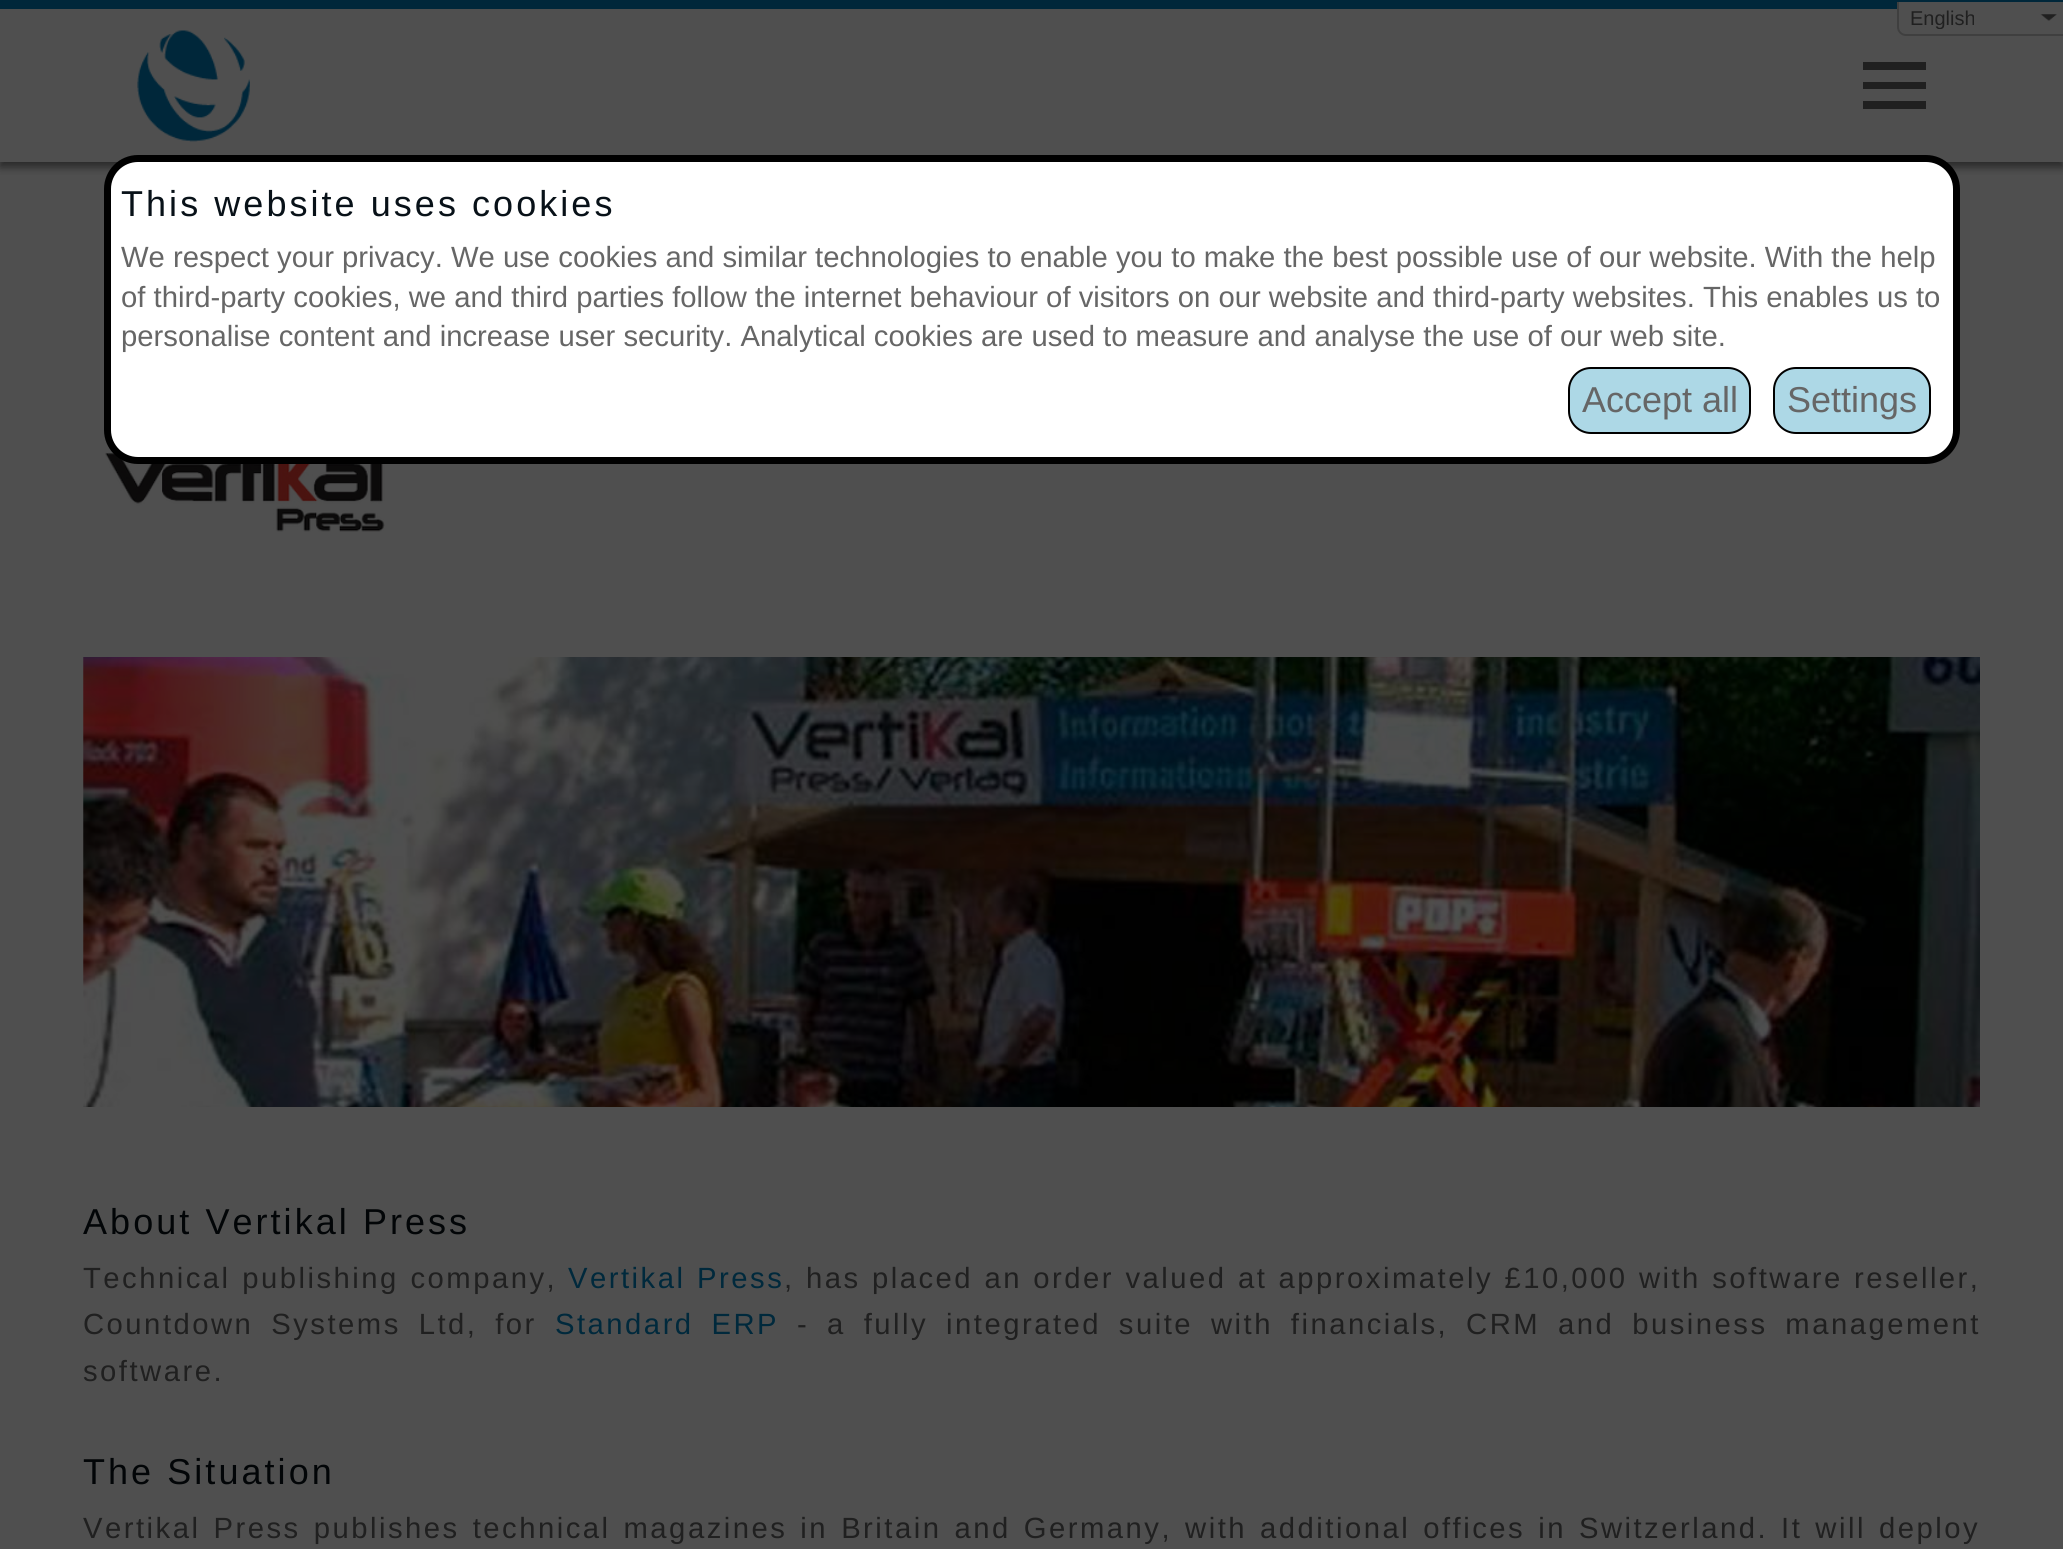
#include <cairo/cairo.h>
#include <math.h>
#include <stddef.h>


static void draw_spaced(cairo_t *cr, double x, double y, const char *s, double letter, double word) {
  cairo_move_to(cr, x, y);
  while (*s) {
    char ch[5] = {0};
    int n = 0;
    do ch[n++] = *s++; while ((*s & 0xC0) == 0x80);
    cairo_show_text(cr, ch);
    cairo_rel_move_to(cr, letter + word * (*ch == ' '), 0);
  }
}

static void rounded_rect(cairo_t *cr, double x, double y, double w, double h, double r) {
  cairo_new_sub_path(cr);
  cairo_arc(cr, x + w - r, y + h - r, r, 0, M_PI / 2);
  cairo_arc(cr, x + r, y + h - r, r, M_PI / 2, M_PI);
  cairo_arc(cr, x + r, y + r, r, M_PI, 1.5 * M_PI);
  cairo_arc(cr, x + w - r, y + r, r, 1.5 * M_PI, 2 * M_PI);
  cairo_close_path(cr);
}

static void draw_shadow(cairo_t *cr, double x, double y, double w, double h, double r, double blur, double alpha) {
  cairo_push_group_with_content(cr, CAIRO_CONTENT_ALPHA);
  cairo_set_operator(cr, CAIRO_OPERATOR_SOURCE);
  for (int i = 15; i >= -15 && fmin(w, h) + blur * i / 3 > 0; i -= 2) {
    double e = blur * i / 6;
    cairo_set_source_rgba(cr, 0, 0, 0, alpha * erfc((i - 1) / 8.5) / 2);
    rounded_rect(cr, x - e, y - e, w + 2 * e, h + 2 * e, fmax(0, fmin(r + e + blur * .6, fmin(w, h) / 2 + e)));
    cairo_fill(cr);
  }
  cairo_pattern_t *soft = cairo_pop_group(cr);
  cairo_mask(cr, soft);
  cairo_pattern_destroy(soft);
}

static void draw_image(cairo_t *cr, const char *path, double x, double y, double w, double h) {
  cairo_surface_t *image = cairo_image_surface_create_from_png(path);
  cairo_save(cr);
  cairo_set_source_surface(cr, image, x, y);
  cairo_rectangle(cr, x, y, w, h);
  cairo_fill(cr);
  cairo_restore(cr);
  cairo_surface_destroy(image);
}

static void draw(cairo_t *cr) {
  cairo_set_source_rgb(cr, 79 / 255.0, 79 / 255.0, 79 / 255.0);
  cairo_paint(cr);
  cairo_save(cr);
  cairo_rectangle(cr, 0, 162, 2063, 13);
  cairo_clip(cr);
  cairo_set_source_rgb(cr, 0, 0, 0);
  draw_shadow(cr, 0, 5, 2063, 162, 0, 4.5, 0.5);
  cairo_restore(cr);
  cairo_set_source_rgb(cr, 0, 39 / 255.0, 58 / 255.0);
  cairo_rectangle(cr, 0, 0, 2063, 9);
  cairo_fill(cr);
  cairo_set_source_rgb(cr, 79 / 255.0, 79 / 255.0, 79 / 255.0);
  cairo_new_path(cr);
  cairo_move_to(cr, 1897, 2);
  cairo_line_to(cr, 2063, 2);
  cairo_line_to(cr, 2063, 36);
  cairo_line_to(cr, 1906, 36);
  cairo_curve_to(cr, 1901, 36, 1897, 32, 1897, 27);
  cairo_close_path(cr);
  cairo_fill(cr);
  draw_image(cr, "images/1.png", 2040, 14, 17, 7);
  cairo_set_source_rgb(cr, 63 / 255.0, 63 / 255.0, 63 / 255.0);
  cairo_set_fill_rule(cr, CAIRO_FILL_RULE_EVEN_ODD);
  cairo_new_path(cr);
  cairo_move_to(cr, 1897, 2);
  cairo_line_to(cr, 2063, 2);
  cairo_line_to(cr, 2063, 36);
  cairo_line_to(cr, 1906, 36);
  cairo_curve_to(cr, 1901, 36, 1897, 32, 1897, 27);
  cairo_close_path(cr);
  cairo_move_to(cr, 1899, 2);
  cairo_line_to(cr, 2063, 2);
  cairo_line_to(cr, 2063, 34);
  cairo_line_to(cr, 1906, 34);
  cairo_curve_to(cr, 1902, 34, 1899, 31, 1899, 27);
  cairo_close_path(cr);
  cairo_fill(cr);
  draw_image(cr, "images/2.png", 137, 30, 113, 112);
  cairo_set_source_rgb(cr, 32 / 255.0, 32 / 255.0, 32 / 255.0);
  cairo_set_fill_rule(cr, CAIRO_FILL_RULE_WINDING);
  cairo_new_path(cr);
  cairo_move_to(cr, 1863, 109);
  cairo_line_to(cr, 1863, 101);
  cairo_line_to(cr, 1926, 101);
  cairo_line_to(cr, 1926, 109);
  cairo_close_path(cr);
  cairo_move_to(cr, 1863, 62);
  cairo_line_to(cr, 1926, 62);
  cairo_line_to(cr, 1926, 70);
  cairo_line_to(cr, 1863, 70);
  cairo_close_path(cr);
  cairo_move_to(cr, 1863, 89);
  cairo_line_to(cr, 1863, 82);
  cairo_line_to(cr, 1926, 82);
  cairo_line_to(cr, 1926, 89);
  cairo_close_path(cr);
  cairo_fill(cr);
  draw_image(cr, "images/3.png", 105, 451, 280, 81);
  cairo_set_source_rgb(cr, 1, 1, 1);
  rounded_rect(cr, 107.5, 158.5, 1849, 302, 30.5);
  cairo_fill_preserve(cr);
  cairo_set_source_rgb(cr, 0, 0, 0);
  cairo_set_line_width(cr, 7);
  cairo_stroke(cr);
  cairo_set_source_rgb(cr, 173 / 255.0, 216 / 255.0, 230 / 255.0);
  rounded_rect(cr, 1569, 368, 181, 65, 22);
  cairo_fill_preserve(cr);
  cairo_set_source_rgb(cr, 0, 0, 0);
  cairo_set_line_width(cr, 2);
  cairo_stroke(cr);
  cairo_set_source_rgb(cr, 173 / 255.0, 216 / 255.0, 230 / 255.0);
  rounded_rect(cr, 1774, 368, 156, 65, 22);
  cairo_fill_preserve(cr);
  cairo_set_source_rgb(cr, 0, 0, 0);
  cairo_stroke(cr);
  draw_image(cr, "images/4.png", 83, 657, 1897, 450);
  cairo_save(cr);
  cairo_rectangle(cr, 1910, 7, 75, 22);
  cairo_clip(cr);
  cairo_select_font_face(cr, "Liberation Sans", CAIRO_FONT_SLANT_NORMAL, CAIRO_FONT_WEIGHT_NORMAL);
  cairo_set_font_size(cr, 20);
  cairo_set_source_rgb(cr, 32 / 255.0, 32 / 255.0, 32 / 255.0);
  cairo_move_to(cr, 1910, 25);
  cairo_show_text(cr, "English");
  cairo_restore(cr);
  cairo_select_font_face(cr, "Liberation Sans", CAIRO_FONT_SLANT_NORMAL, CAIRO_FONT_WEIGHT_NORMAL);
  cairo_set_font_size(cr, 36);
  cairo_set_source_rgb(cr, 8 / 255.0, 17 / 255.0, 24 / 255.0);
  draw_spaced(cr, 121, 216, "This website uses cookies", 3.05, 0);
  cairo_set_font_size(cr, 29.25);
  cairo_set_source_rgb(cr, 102 / 255.0, 102 / 255.0, 102 / 255.0);
  cairo_move_to(cr, 121, 267);
  cairo_show_text(cr, "We respect your privacy. We use cookies and similar technologies to enable you to make the best possible use of our website. With the help");
  cairo_move_to(cr, 121, 307);
  cairo_show_text(cr, "of third-party cookies, we and third parties follow the internet behaviour of visitors on our website and third-party websites. This enables us to");
  cairo_move_to(cr, 121, 346);
  cairo_show_text(cr, "personalise content and increase user security. Analytical cookies are used to measure and analyse the use of our web site.");
  cairo_set_font_size(cr, 36);
  cairo_move_to(cr, 1582, 412);
  cairo_show_text(cr, "Accept all");
  cairo_move_to(cr, 1787, 412);
  cairo_show_text(cr, "Settings");
  cairo_set_source_rgb(cr, 2 / 255.0, 5 / 255.0, 7 / 255.0);
  draw_spaced(cr, 83, 1234, "About Vertikal Press", 3.05, 0);
  cairo_set_font_size(cr, 29.25);
  cairo_set_source_rgb(cr, 32 / 255.0, 32 / 255.0, 32 / 255.0);
  draw_spaced(cr, 83, 1288, "Technical publishing company,", 2.49, 1);
  cairo_set_source_rgb(cr, 0, 41 / 255.0, 60 / 255.0);
  draw_spaced(cr, 568, 1288, "Vertikal Press", 2.49, 1);
  cairo_set_source_rgb(cr, 32 / 255.0, 32 / 255.0, 32 / 255.0);
  draw_spaced(cr, 784, 1288, ", has placed an order valued at approximately £10,000 with software reseller,", 2.49, 0.75);
  draw_spaced(cr, 83, 1334, "Countdown Systems Ltd, for", 2.49, 7.25);
  cairo_set_source_rgb(cr, 0, 41 / 255.0, 60 / 255.0);
  draw_spaced(cr, 555, 1334, "Standard ERP", 2.49, 7.25);
  cairo_set_source_rgb(cr, 32 / 255.0, 32 / 255.0, 32 / 255.0);
  draw_spaced(cr, 797, 1334, "- a fully integrated suite with financials, CRM and business management", 2.49, 7.25);
  draw_spaced(cr, 83, 1381, "software.", 2.49, 0);
  cairo_set_font_size(cr, 36);
  cairo_set_source_rgb(cr, 2 / 255.0, 5 / 255.0, 7 / 255.0);
  draw_spaced(cr, 83, 1484, "The Situation", 3.05, 0);
  cairo_set_font_size(cr, 29.25);
  cairo_set_source_rgb(cr, 32 / 255.0, 32 / 255.0, 32 / 255.0);
  draw_spaced(cr, 83, 1538, "Vertikal Press publishes technical magazines in Britain and Germany, with additional offices in Switzerland. It will deploy", 2.49, 2.4);
}

int main(void) {
  cairo_surface_t *surface = cairo_image_surface_create(CAIRO_FORMAT_RGB24, 2063, 1549);
  cairo_t *cr = cairo_create(surface);
  cairo_font_options_t *options = cairo_font_options_create();
  cairo_font_options_set_hint_metrics(options, CAIRO_HINT_METRICS_OFF);
  cairo_font_options_set_hint_style(options, CAIRO_HINT_STYLE_NONE);
  cairo_set_font_options(cr, options);
  cairo_set_miter_limit(cr, 4);
  draw(cr);
  cairo_surface_write_to_png(surface, "out.png");
  cairo_font_options_destroy(options);
  cairo_destroy(cr);
  cairo_surface_destroy(surface);
  return 0;
}
